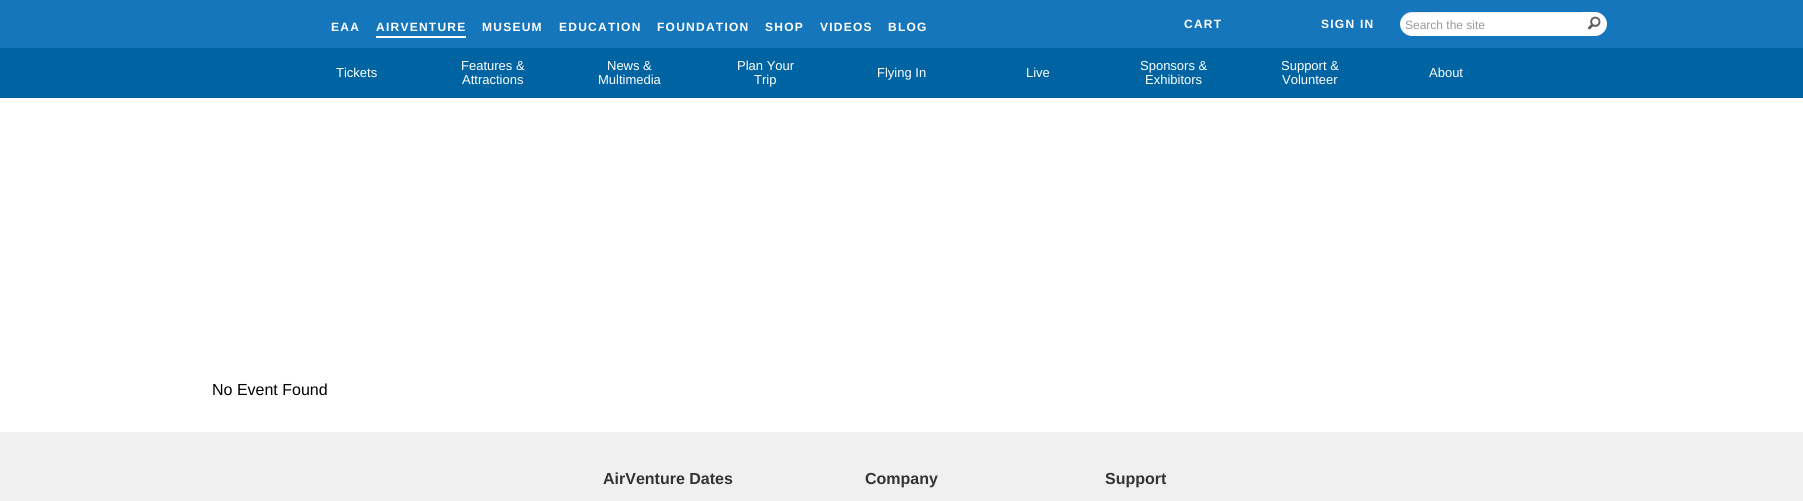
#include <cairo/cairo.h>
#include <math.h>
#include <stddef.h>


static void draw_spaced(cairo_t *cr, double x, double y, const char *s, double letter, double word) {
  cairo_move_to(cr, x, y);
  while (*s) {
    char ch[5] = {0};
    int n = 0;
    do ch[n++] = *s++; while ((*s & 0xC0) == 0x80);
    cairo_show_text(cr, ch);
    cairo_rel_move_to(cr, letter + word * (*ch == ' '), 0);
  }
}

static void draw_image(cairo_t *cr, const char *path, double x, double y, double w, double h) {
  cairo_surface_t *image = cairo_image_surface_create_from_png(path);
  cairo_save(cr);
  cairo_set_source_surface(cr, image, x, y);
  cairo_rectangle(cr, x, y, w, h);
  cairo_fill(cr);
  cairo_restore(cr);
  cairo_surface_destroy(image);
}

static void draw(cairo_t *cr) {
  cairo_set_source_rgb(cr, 1, 1, 1);
  cairo_paint(cr);
  cairo_set_source_rgb(cr, 22 / 255.0, 118 / 255.0, 188 / 255.0);
  cairo_rectangle(cr, 0, 0, 1803, 48);
  cairo_fill(cr);
  cairo_set_source_rgb(cr, 1, 1, 1);
  cairo_rectangle(cr, 376, 36, 90, 2);
  cairo_fill(cr);
  cairo_new_path(cr);
  cairo_move_to(cr, 1412, 12);
  cairo_line_to(cr, 1582, 12);
  cairo_line_to(cr, 1582, 36);
  cairo_line_to(cr, 1412, 36);
  cairo_curve_to(cr, 1405.5, 36, 1400, 30.5, 1400, 24);
  cairo_curve_to(cr, 1400, 17.5, 1405.5, 12, 1412, 12);
  cairo_close_path(cr);
  cairo_fill(cr);
  cairo_set_source_rgba(cr, 0, 0, 0, 0.07);
  cairo_new_path(cr);
  cairo_move_to(cr, 1412, 13);
  cairo_line_to(cr, 1582, 13);
  cairo_line_to(cr, 1582, 12);
  cairo_line_to(cr, 1440, 12);
  cairo_curve_to(cr, 1433, 12, 1399, 5, 1400, 24);
  cairo_curve_to(cr, 1400, 18, 1405, 13, 1412, 13);
  cairo_close_path(cr);
  cairo_fill(cr);
  cairo_set_source_rgb(cr, 1, 1, 1);
  cairo_new_path(cr);
  cairo_move_to(cr, 1582, 12);
  cairo_line_to(cr, 1595, 12);
  cairo_curve_to(cr, 1601.5, 12, 1607, 17.5, 1607, 24);
  cairo_curve_to(cr, 1607, 30.5, 1601.5, 36, 1595, 36);
  cairo_line_to(cr, 1582, 36);
  cairo_close_path(cr);
  cairo_fill(cr);
  draw_image(cr, "images/1.png", 1588, 16, 13, 14);
  cairo_set_source_rgb(cr, 0, 99 / 255.0, 162 / 255.0);
  cairo_rectangle(cr, 0, 48, 1803, 50);
  cairo_fill(cr);
  cairo_set_source_rgb(cr, 240 / 255.0, 240 / 255.0, 240 / 255.0);
  cairo_rectangle(cr, 0, 432, 1803, 69);
  cairo_fill(cr);
  cairo_select_font_face(cr, "Liberation Sans", CAIRO_FONT_SLANT_NORMAL, CAIRO_FONT_WEIGHT_BOLD);
  cairo_set_font_size(cr, 12);
  cairo_set_source_rgb(cr, 1, 1, 1);
  draw_spaced(cr, 331, 31, "EAA", 1.25, 0);
  draw_spaced(cr, 376, 31, "AIRVENTURE", 1.25, 0);
  draw_spaced(cr, 482, 31, "MUSEUM", 1.25, 0);
  draw_spaced(cr, 559, 31, "EDUCATION", 1.25, 0);
  draw_spaced(cr, 657, 31, "FOUNDATION", 1.25, 0);
  draw_spaced(cr, 765, 31, "SHOP", 1.25, 0);
  draw_spaced(cr, 820, 31, "VIDEOS", 1.25, 0);
  draw_spaced(cr, 888, 31, "BLOG", 1.25, 0);
  draw_spaced(cr, 1184, 28, "CART", 1.25, 0);
  draw_spaced(cr, 1321, 28, "SIGN IN", 1.25, 0);
  cairo_select_font_face(cr, "Liberation Sans", CAIRO_FONT_SLANT_NORMAL, CAIRO_FONT_WEIGHT_NORMAL);
  cairo_set_source_rgb(cr, 153 / 255.0, 153 / 255.0, 153 / 255.0);
  cairo_move_to(cr, 1405, 29);
  cairo_show_text(cr, "Search the site");
  cairo_set_font_size(cr, 13);
  cairo_set_source_rgb(cr, 1, 1, 1);
  cairo_move_to(cr, 336, 77);
  cairo_show_text(cr, "Tickets");
  cairo_move_to(cr, 461, 70);
  cairo_show_text(cr, "Features &");
  cairo_move_to(cr, 462, 84);
  cairo_show_text(cr, "Attractions");
  cairo_move_to(cr, 607, 70);
  cairo_show_text(cr, "News &");
  cairo_move_to(cr, 598, 84);
  cairo_show_text(cr, "Multimedia");
  cairo_move_to(cr, 737, 70);
  cairo_show_text(cr, "Plan Your");
  cairo_move_to(cr, 754, 84);
  cairo_show_text(cr, "Trip");
  cairo_move_to(cr, 877, 77);
  cairo_show_text(cr, "Flying In");
  cairo_move_to(cr, 1026, 77);
  cairo_show_text(cr, "Live");
  cairo_move_to(cr, 1140, 70);
  cairo_show_text(cr, "Sponsors &");
  cairo_move_to(cr, 1145, 84);
  cairo_show_text(cr, "Exhibitors");
  cairo_move_to(cr, 1281, 70);
  cairo_show_text(cr, "Support &");
  cairo_move_to(cr, 1282, 84);
  cairo_show_text(cr, "Volunteer");
  cairo_move_to(cr, 1429, 77);
  cairo_show_text(cr, "About");
  cairo_set_font_size(cr, 16);
  cairo_set_source_rgb(cr, 0, 0, 0);
  cairo_move_to(cr, 212, 395);
  cairo_show_text(cr, "No Event Found");
  cairo_select_font_face(cr, "Liberation Sans", CAIRO_FONT_SLANT_NORMAL, CAIRO_FONT_WEIGHT_BOLD);
  cairo_set_source_rgb(cr, 51 / 255.0, 51 / 255.0, 51 / 255.0);
  cairo_move_to(cr, 603, 484);
  cairo_show_text(cr, "AirVenture Dates");
  cairo_move_to(cr, 865, 484);
  cairo_show_text(cr, "Company");
  cairo_move_to(cr, 1105, 484);
  cairo_show_text(cr, "Support");
}

int main(void) {
  cairo_surface_t *surface = cairo_image_surface_create(CAIRO_FORMAT_RGB24, 1803, 501);
  cairo_t *cr = cairo_create(surface);
  cairo_font_options_t *options = cairo_font_options_create();
  cairo_font_options_set_hint_metrics(options, CAIRO_HINT_METRICS_OFF);
  cairo_font_options_set_hint_style(options, CAIRO_HINT_STYLE_NONE);
  cairo_set_font_options(cr, options);
  cairo_set_miter_limit(cr, 4);
  draw(cr);
  cairo_surface_write_to_png(surface, "out.png");
  cairo_font_options_destroy(options);
  cairo_destroy(cr);
  cairo_surface_destroy(surface);
  return 0;
}
